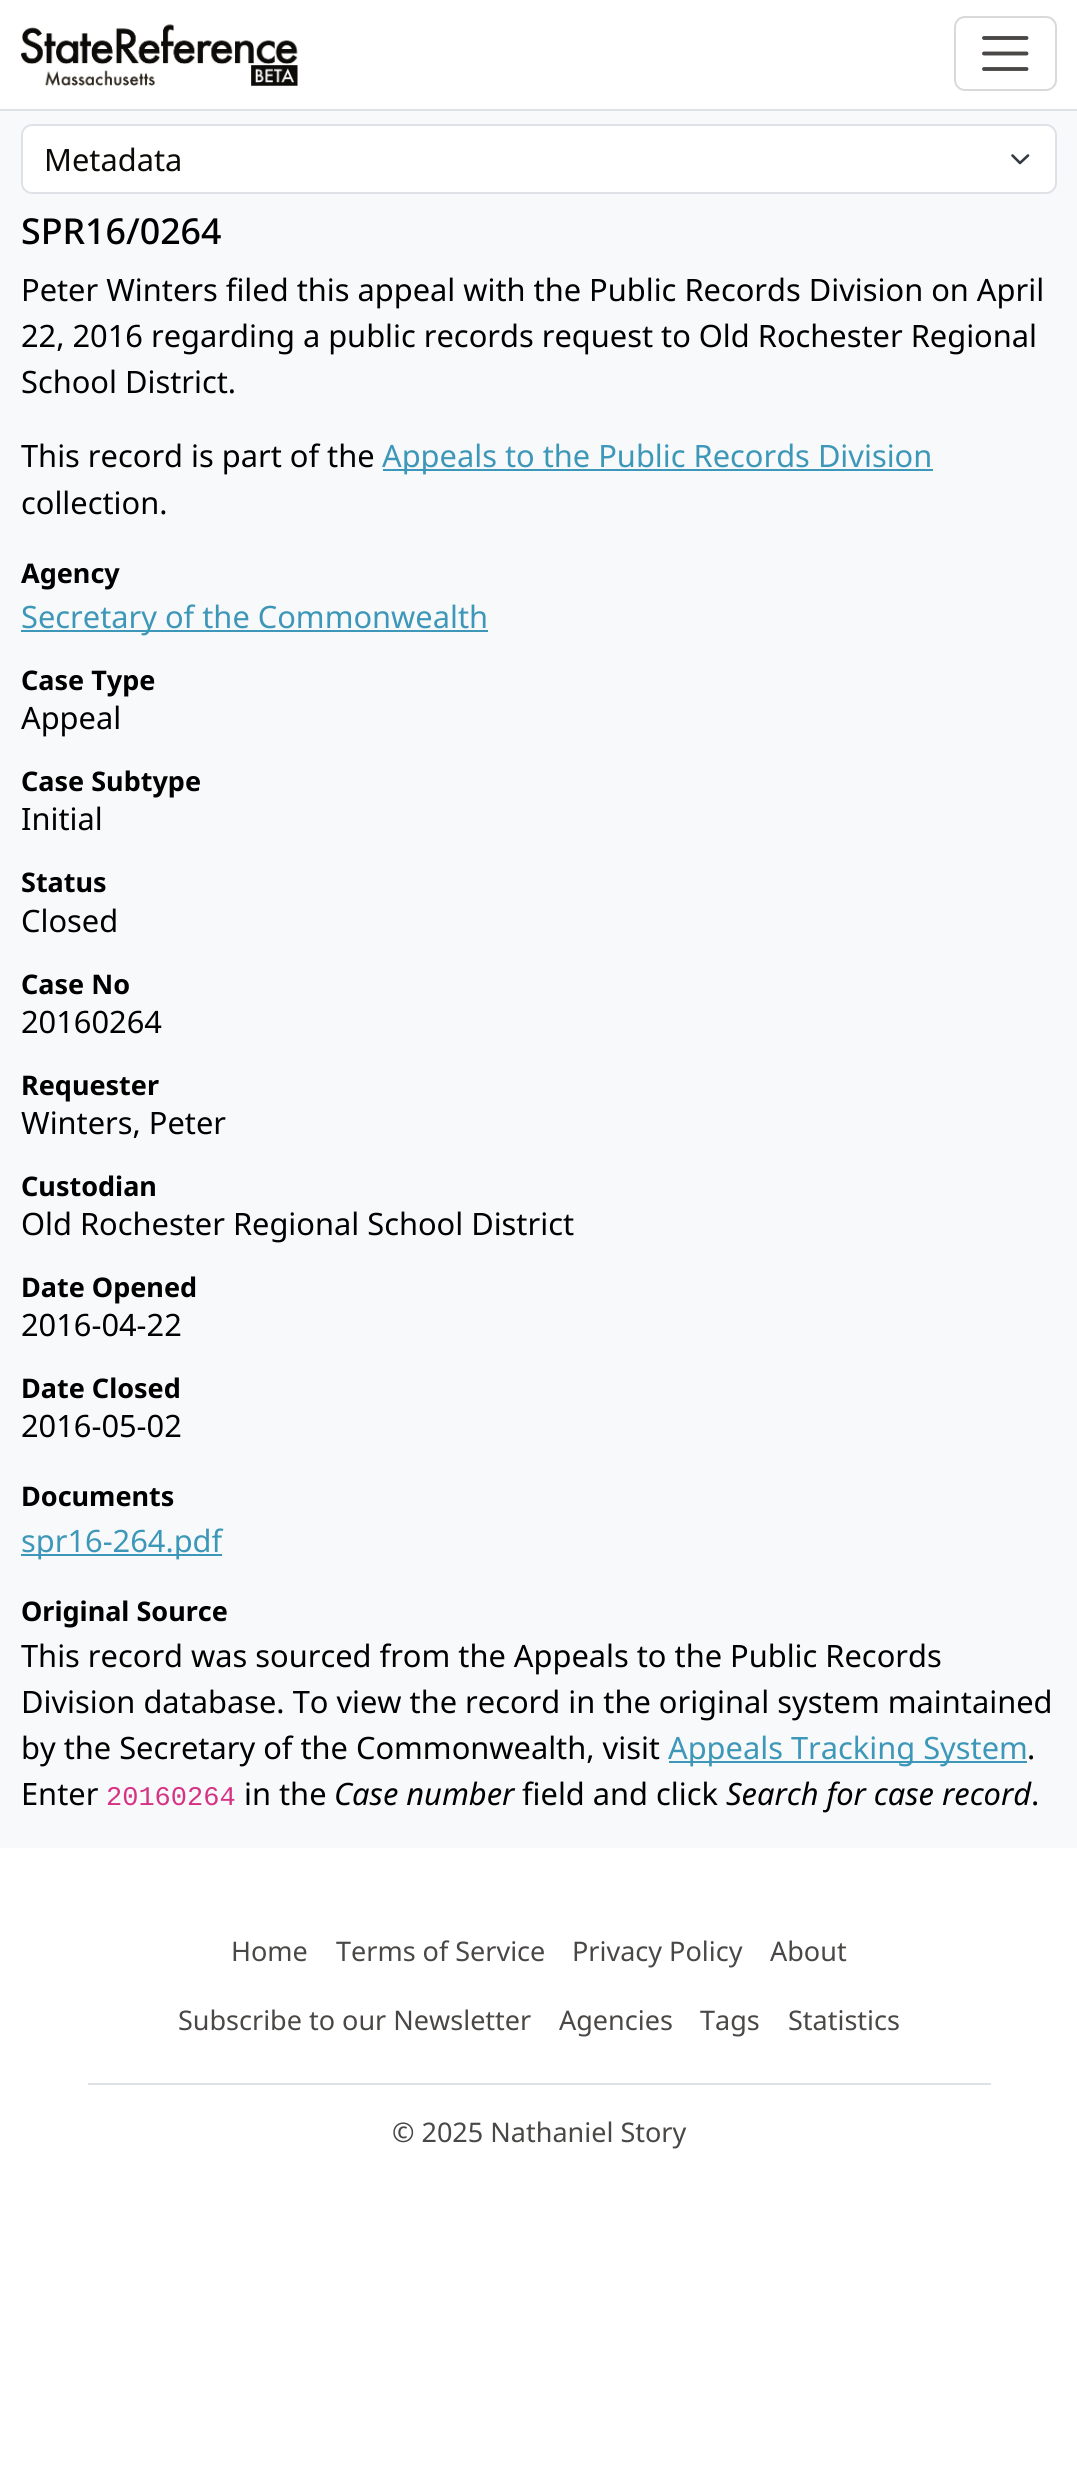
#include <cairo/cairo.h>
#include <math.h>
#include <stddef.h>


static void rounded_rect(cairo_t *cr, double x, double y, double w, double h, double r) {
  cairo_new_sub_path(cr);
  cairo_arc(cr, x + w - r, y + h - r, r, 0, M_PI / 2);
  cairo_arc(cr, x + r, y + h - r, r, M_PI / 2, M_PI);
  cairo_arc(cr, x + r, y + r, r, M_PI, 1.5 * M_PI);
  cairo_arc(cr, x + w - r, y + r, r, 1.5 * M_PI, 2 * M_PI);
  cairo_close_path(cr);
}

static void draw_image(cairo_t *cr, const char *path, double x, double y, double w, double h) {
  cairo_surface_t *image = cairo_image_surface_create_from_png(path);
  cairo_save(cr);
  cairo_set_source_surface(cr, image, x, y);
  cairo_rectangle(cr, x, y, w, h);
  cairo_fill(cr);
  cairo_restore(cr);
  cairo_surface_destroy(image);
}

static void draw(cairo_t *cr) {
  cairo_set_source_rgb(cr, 1, 1, 1);
  cairo_paint(cr);
  cairo_set_source_rgb(cr, 222 / 255.0, 226 / 255.0, 230 / 255.0);
  cairo_rectangle(cr, 0, 109, 1077, 2);
  cairo_fill(cr);
  draw_image(cr, "images/1.png", 21, 24, 277, 62);
  rounded_rect(cr, 955, 17, 101, 73, 10);
  cairo_set_source_rgb(cr, 217 / 255.0, 217 / 255.0, 217 / 255.0);
  cairo_stroke(cr);
  cairo_new_path(cr);
  cairo_move_to(cr, 984, 38);
  cairo_line_to(cr, 1026.5, 38);
  cairo_move_to(cr, 984, 53.5);
  cairo_line_to(cr, 1026.5, 53.5);
  cairo_move_to(cr, 984, 69);
  cairo_line_to(cr, 1026.5, 69);
  cairo_set_source_rgb(cr, 74 / 255.0, 72 / 255.0, 70 / 255.0);
  cairo_set_line_width(cr, 3.9);
  cairo_set_line_cap(cr, CAIRO_LINE_CAP_ROUND);
  cairo_stroke(cr);
  cairo_set_source_rgb(cr, 248 / 255.0, 249 / 255.0, 250 / 255.0);
  cairo_rectangle(cr, 0, 111, 1077, 1737);
  cairo_fill(cr);
  cairo_set_source_rgb(cr, 1, 1, 1);
  rounded_rect(cr, 21, 124, 1036, 70, 11);
  cairo_fill(cr);
  cairo_new_path(cr);
  cairo_move_to(cr, 1012.5, 155.5);
  cairo_line_to(cr, 1020, 163);
  cairo_line_to(cr, 1028, 155.5);
  cairo_set_source_rgb(cr, 52 / 255.0, 58 / 255.0, 64 / 255.0);
  cairo_set_line_width(cr, 2.6);
  cairo_set_line_join(cr, CAIRO_LINE_JOIN_ROUND);
  cairo_stroke(cr);
  rounded_rect(cr, 22, 125, 1034, 68, 10);
  cairo_set_source_rgb(cr, 222 / 255.0, 226 / 255.0, 230 / 255.0);
  cairo_set_line_width(cr, 2);
  cairo_set_line_cap(cr, CAIRO_LINE_CAP_BUTT);
  cairo_set_line_join(cr, CAIRO_LINE_JOIN_MITER);
  cairo_stroke(cr);
  cairo_set_source_rgb(cr, 61 / 255.0, 151 / 255.0, 184 / 255.0);
  cairo_rectangle(cr, 383, 469, 550, 2);
  cairo_fill(cr);
  cairo_rectangle(cr, 21, 630, 467, 2);
  cairo_fill(cr);
  cairo_rectangle(cr, 21, 1554, 201, 2);
  cairo_fill(cr);
  cairo_rectangle(cr, 669, 1761, 358, 2);
  cairo_fill(cr);
  cairo_set_source_rgb(cr, 222 / 255.0, 226 / 255.0, 230 / 255.0);
  cairo_rectangle(cr, 88, 2083, 903, 2);
  cairo_fill(cr);
  cairo_select_font_face(cr, "Noto Sans", CAIRO_FONT_SLANT_NORMAL, CAIRO_FONT_WEIGHT_NORMAL);
  cairo_set_font_size(cr, 30.8);
  cairo_set_source_rgb(cr, 13 / 255.0, 11 / 255.0, 8 / 255.0);
  cairo_move_to(cr, 44, 171);
  cairo_show_text(cr, "Metadata");
  cairo_select_font_face(cr, "Noto Sans Medium", CAIRO_FONT_SLANT_NORMAL, CAIRO_FONT_WEIGHT_NORMAL);
  cairo_set_font_size(cr, 35.75);
  cairo_set_source_rgb(cr, 0, 0, 0);
  cairo_move_to(cr, 21, 244);
  cairo_show_text(cr, "SPR16/0264");
  cairo_select_font_face(cr, "Noto Sans", CAIRO_FONT_SLANT_NORMAL, CAIRO_FONT_WEIGHT_NORMAL);
  cairo_set_font_size(cr, 30.8);
  cairo_move_to(cr, 21, 301);
  cairo_show_text(cr, "Peter Winters filed this appeal with the Public Records Division on April");
  cairo_move_to(cr, 21, 347);
  cairo_show_text(cr, "22, 2016 regarding a public records request to Old Rochester Regional");
  cairo_move_to(cr, 21, 393);
  cairo_show_text(cr, "School District.");
  cairo_move_to(cr, 21, 467);
  cairo_show_text(cr, "This record is part of the");
  cairo_set_source_rgb(cr, 61 / 255.0, 151 / 255.0, 184 / 255.0);
  cairo_move_to(cr, 382, 467);
  cairo_show_text(cr, "Appeals to the Public Records Division");
  cairo_set_source_rgb(cr, 0, 0, 0);
  cairo_move_to(cr, 21, 514);
  cairo_show_text(cr, "collection.");
  cairo_select_font_face(cr, "Noto Sans", CAIRO_FONT_SLANT_NORMAL, CAIRO_FONT_WEIGHT_BOLD);
  cairo_set_font_size(cr, 27);
  cairo_move_to(cr, 21, 583);
  cairo_show_text(cr, "Agency");
  cairo_select_font_face(cr, "Noto Sans", CAIRO_FONT_SLANT_NORMAL, CAIRO_FONT_WEIGHT_NORMAL);
  cairo_set_font_size(cr, 30.8);
  cairo_set_source_rgb(cr, 61 / 255.0, 151 / 255.0, 184 / 255.0);
  cairo_move_to(cr, 21, 628);
  cairo_show_text(cr, "Secretary of the Commonwealth");
  cairo_select_font_face(cr, "Noto Sans", CAIRO_FONT_SLANT_NORMAL, CAIRO_FONT_WEIGHT_BOLD);
  cairo_set_font_size(cr, 27);
  cairo_set_source_rgb(cr, 0, 0, 0);
  cairo_move_to(cr, 21, 690);
  cairo_show_text(cr, "Case Type");
  cairo_select_font_face(cr, "Noto Sans", CAIRO_FONT_SLANT_NORMAL, CAIRO_FONT_WEIGHT_NORMAL);
  cairo_set_font_size(cr, 30.8);
  cairo_move_to(cr, 21, 729);
  cairo_show_text(cr, "Appeal");
  cairo_select_font_face(cr, "Noto Sans", CAIRO_FONT_SLANT_NORMAL, CAIRO_FONT_WEIGHT_BOLD);
  cairo_set_font_size(cr, 27);
  cairo_move_to(cr, 21, 791);
  cairo_show_text(cr, "Case Subtype");
  cairo_select_font_face(cr, "Noto Sans", CAIRO_FONT_SLANT_NORMAL, CAIRO_FONT_WEIGHT_NORMAL);
  cairo_set_font_size(cr, 30.8);
  cairo_move_to(cr, 21, 830);
  cairo_show_text(cr, "Initial");
  cairo_select_font_face(cr, "Noto Sans", CAIRO_FONT_SLANT_NORMAL, CAIRO_FONT_WEIGHT_BOLD);
  cairo_set_font_size(cr, 27);
  cairo_move_to(cr, 21, 892);
  cairo_show_text(cr, "Status");
  cairo_select_font_face(cr, "Noto Sans", CAIRO_FONT_SLANT_NORMAL, CAIRO_FONT_WEIGHT_NORMAL);
  cairo_set_font_size(cr, 30.8);
  cairo_move_to(cr, 21, 932);
  cairo_show_text(cr, "Closed");
  cairo_select_font_face(cr, "Noto Sans", CAIRO_FONT_SLANT_NORMAL, CAIRO_FONT_WEIGHT_BOLD);
  cairo_set_font_size(cr, 27);
  cairo_move_to(cr, 21, 994);
  cairo_show_text(cr, "Case No");
  cairo_select_font_face(cr, "Noto Sans", CAIRO_FONT_SLANT_NORMAL, CAIRO_FONT_WEIGHT_NORMAL);
  cairo_set_font_size(cr, 30.8);
  cairo_move_to(cr, 21, 1033);
  cairo_show_text(cr, "20160264");
  cairo_select_font_face(cr, "Noto Sans", CAIRO_FONT_SLANT_NORMAL, CAIRO_FONT_WEIGHT_BOLD);
  cairo_set_font_size(cr, 27);
  cairo_move_to(cr, 21, 1095);
  cairo_show_text(cr, "Requester");
  cairo_select_font_face(cr, "Noto Sans", CAIRO_FONT_SLANT_NORMAL, CAIRO_FONT_WEIGHT_NORMAL);
  cairo_set_font_size(cr, 30.8);
  cairo_move_to(cr, 21, 1134);
  cairo_show_text(cr, "Winters, Peter");
  cairo_select_font_face(cr, "Noto Sans", CAIRO_FONT_SLANT_NORMAL, CAIRO_FONT_WEIGHT_BOLD);
  cairo_set_font_size(cr, 27);
  cairo_move_to(cr, 21, 1196);
  cairo_show_text(cr, "Custodian");
  cairo_select_font_face(cr, "Noto Sans", CAIRO_FONT_SLANT_NORMAL, CAIRO_FONT_WEIGHT_NORMAL);
  cairo_set_font_size(cr, 30.8);
  cairo_move_to(cr, 21, 1235);
  cairo_show_text(cr, "Old Rochester Regional School District");
  cairo_select_font_face(cr, "Noto Sans", CAIRO_FONT_SLANT_NORMAL, CAIRO_FONT_WEIGHT_BOLD);
  cairo_set_font_size(cr, 27);
  cairo_move_to(cr, 21, 1297);
  cairo_show_text(cr, "Date Opened");
  cairo_select_font_face(cr, "Noto Sans", CAIRO_FONT_SLANT_NORMAL, CAIRO_FONT_WEIGHT_NORMAL);
  cairo_set_font_size(cr, 30.8);
  cairo_move_to(cr, 21, 1336);
  cairo_show_text(cr, "2016-04-22");
  cairo_select_font_face(cr, "Noto Sans", CAIRO_FONT_SLANT_NORMAL, CAIRO_FONT_WEIGHT_BOLD);
  cairo_set_font_size(cr, 27);
  cairo_move_to(cr, 21, 1398);
  cairo_show_text(cr, "Date Closed");
  cairo_select_font_face(cr, "Noto Sans", CAIRO_FONT_SLANT_NORMAL, CAIRO_FONT_WEIGHT_NORMAL);
  cairo_set_font_size(cr, 30.8);
  cairo_move_to(cr, 21, 1437);
  cairo_show_text(cr, "2016-05-02");
  cairo_select_font_face(cr, "Noto Sans", CAIRO_FONT_SLANT_NORMAL, CAIRO_FONT_WEIGHT_BOLD);
  cairo_set_font_size(cr, 27);
  cairo_move_to(cr, 21, 1506);
  cairo_show_text(cr, "Documents");
  cairo_select_font_face(cr, "Noto Sans", CAIRO_FONT_SLANT_NORMAL, CAIRO_FONT_WEIGHT_NORMAL);
  cairo_set_font_size(cr, 30.8);
  cairo_set_source_rgb(cr, 61 / 255.0, 151 / 255.0, 184 / 255.0);
  cairo_move_to(cr, 21, 1552);
  cairo_show_text(cr, "spr16-264.pdf");
  cairo_select_font_face(cr, "Noto Sans", CAIRO_FONT_SLANT_NORMAL, CAIRO_FONT_WEIGHT_BOLD);
  cairo_set_font_size(cr, 27);
  cairo_set_source_rgb(cr, 0, 0, 0);
  cairo_move_to(cr, 21, 1621);
  cairo_show_text(cr, "Original Source");
  cairo_select_font_face(cr, "Noto Sans", CAIRO_FONT_SLANT_NORMAL, CAIRO_FONT_WEIGHT_NORMAL);
  cairo_set_font_size(cr, 30.8);
  cairo_move_to(cr, 21, 1667);
  cairo_show_text(cr, "This record was sourced from the Appeals to the Public Records");
  cairo_move_to(cr, 21, 1713);
  cairo_show_text(cr, "Division database. To view the record in the original system maintained");
  cairo_move_to(cr, 21, 1759);
  cairo_show_text(cr, "by the Secretary of the Commonwealth, visit");
  cairo_set_source_rgb(cr, 61 / 255.0, 151 / 255.0, 184 / 255.0);
  cairo_move_to(cr, 668, 1759);
  cairo_show_text(cr, "Appeals Tracking System");
  cairo_set_source_rgb(cr, 0, 0, 0);
  cairo_move_to(cr, 1027, 1759);
  cairo_show_text(cr, ".");
  cairo_move_to(cr, 21, 1805);
  cairo_show_text(cr, "Enter");
  cairo_select_font_face(cr, "Liberation Mono", CAIRO_FONT_SLANT_NORMAL, CAIRO_FONT_WEIGHT_NORMAL);
  cairo_set_font_size(cr, 27);
  cairo_set_source_rgb(cr, 214 / 255.0, 51 / 255.0, 132 / 255.0);
  cairo_move_to(cr, 106, 1805);
  cairo_show_text(cr, "20160264");
  cairo_select_font_face(cr, "Noto Sans", CAIRO_FONT_SLANT_NORMAL, CAIRO_FONT_WEIGHT_NORMAL);
  cairo_set_font_size(cr, 30.8);
  cairo_set_source_rgb(cr, 0, 0, 0);
  cairo_move_to(cr, 244, 1805);
  cairo_show_text(cr, "in the");
  cairo_select_font_face(cr, "Noto Sans", CAIRO_FONT_SLANT_ITALIC, CAIRO_FONT_WEIGHT_NORMAL);
  cairo_move_to(cr, 334, 1805);
  cairo_show_text(cr, "Case number");
  cairo_select_font_face(cr, "Noto Sans", CAIRO_FONT_SLANT_NORMAL, CAIRO_FONT_WEIGHT_NORMAL);
  cairo_move_to(cr, 522, 1805);
  cairo_show_text(cr, "field and click");
  cairo_select_font_face(cr, "Noto Sans", CAIRO_FONT_SLANT_ITALIC, CAIRO_FONT_WEIGHT_NORMAL);
  cairo_move_to(cr, 726, 1805);
  cairo_show_text(cr, "Search for case record");
  cairo_select_font_face(cr, "Noto Sans", CAIRO_FONT_SLANT_NORMAL, CAIRO_FONT_WEIGHT_NORMAL);
  cairo_move_to(cr, 1031, 1805);
  cairo_show_text(cr, ".");
  cairo_set_font_size(cr, 27);
  cairo_set_source_rgb(cr, 74 / 255.0, 72 / 255.0, 70 / 255.0);
  cairo_move_to(cr, 231, 1961);
  cairo_show_text(cr, "Home");
  cairo_move_to(cr, 336, 1961);
  cairo_show_text(cr, "Terms of Service");
  cairo_move_to(cr, 572, 1961);
  cairo_show_text(cr, "Privacy Policy");
  cairo_move_to(cr, 770, 1961);
  cairo_show_text(cr, "About");
  cairo_move_to(cr, 178, 2030);
  cairo_show_text(cr, "Subscribe to our Newsletter");
  cairo_move_to(cr, 559, 2030);
  cairo_show_text(cr, "Agencies");
  cairo_move_to(cr, 700, 2030);
  cairo_show_text(cr, "Tags");
  cairo_move_to(cr, 788, 2030);
  cairo_show_text(cr, "Statistics");
  cairo_move_to(cr, 392, 2142);
  cairo_show_text(cr, "© 2025 Nathaniel Story");
}

int main(void) {
  cairo_surface_t *surface = cairo_image_surface_create(CAIRO_FORMAT_RGB24, 1077, 2471);
  cairo_t *cr = cairo_create(surface);
  cairo_font_options_t *options = cairo_font_options_create();
  cairo_font_options_set_hint_metrics(options, CAIRO_HINT_METRICS_OFF);
  cairo_font_options_set_hint_style(options, CAIRO_HINT_STYLE_NONE);
  cairo_set_font_options(cr, options);
  cairo_set_miter_limit(cr, 4);
  draw(cr);
  cairo_surface_write_to_png(surface, "out.png");
  cairo_font_options_destroy(options);
  cairo_destroy(cr);
  cairo_surface_destroy(surface);
  return 0;
}
